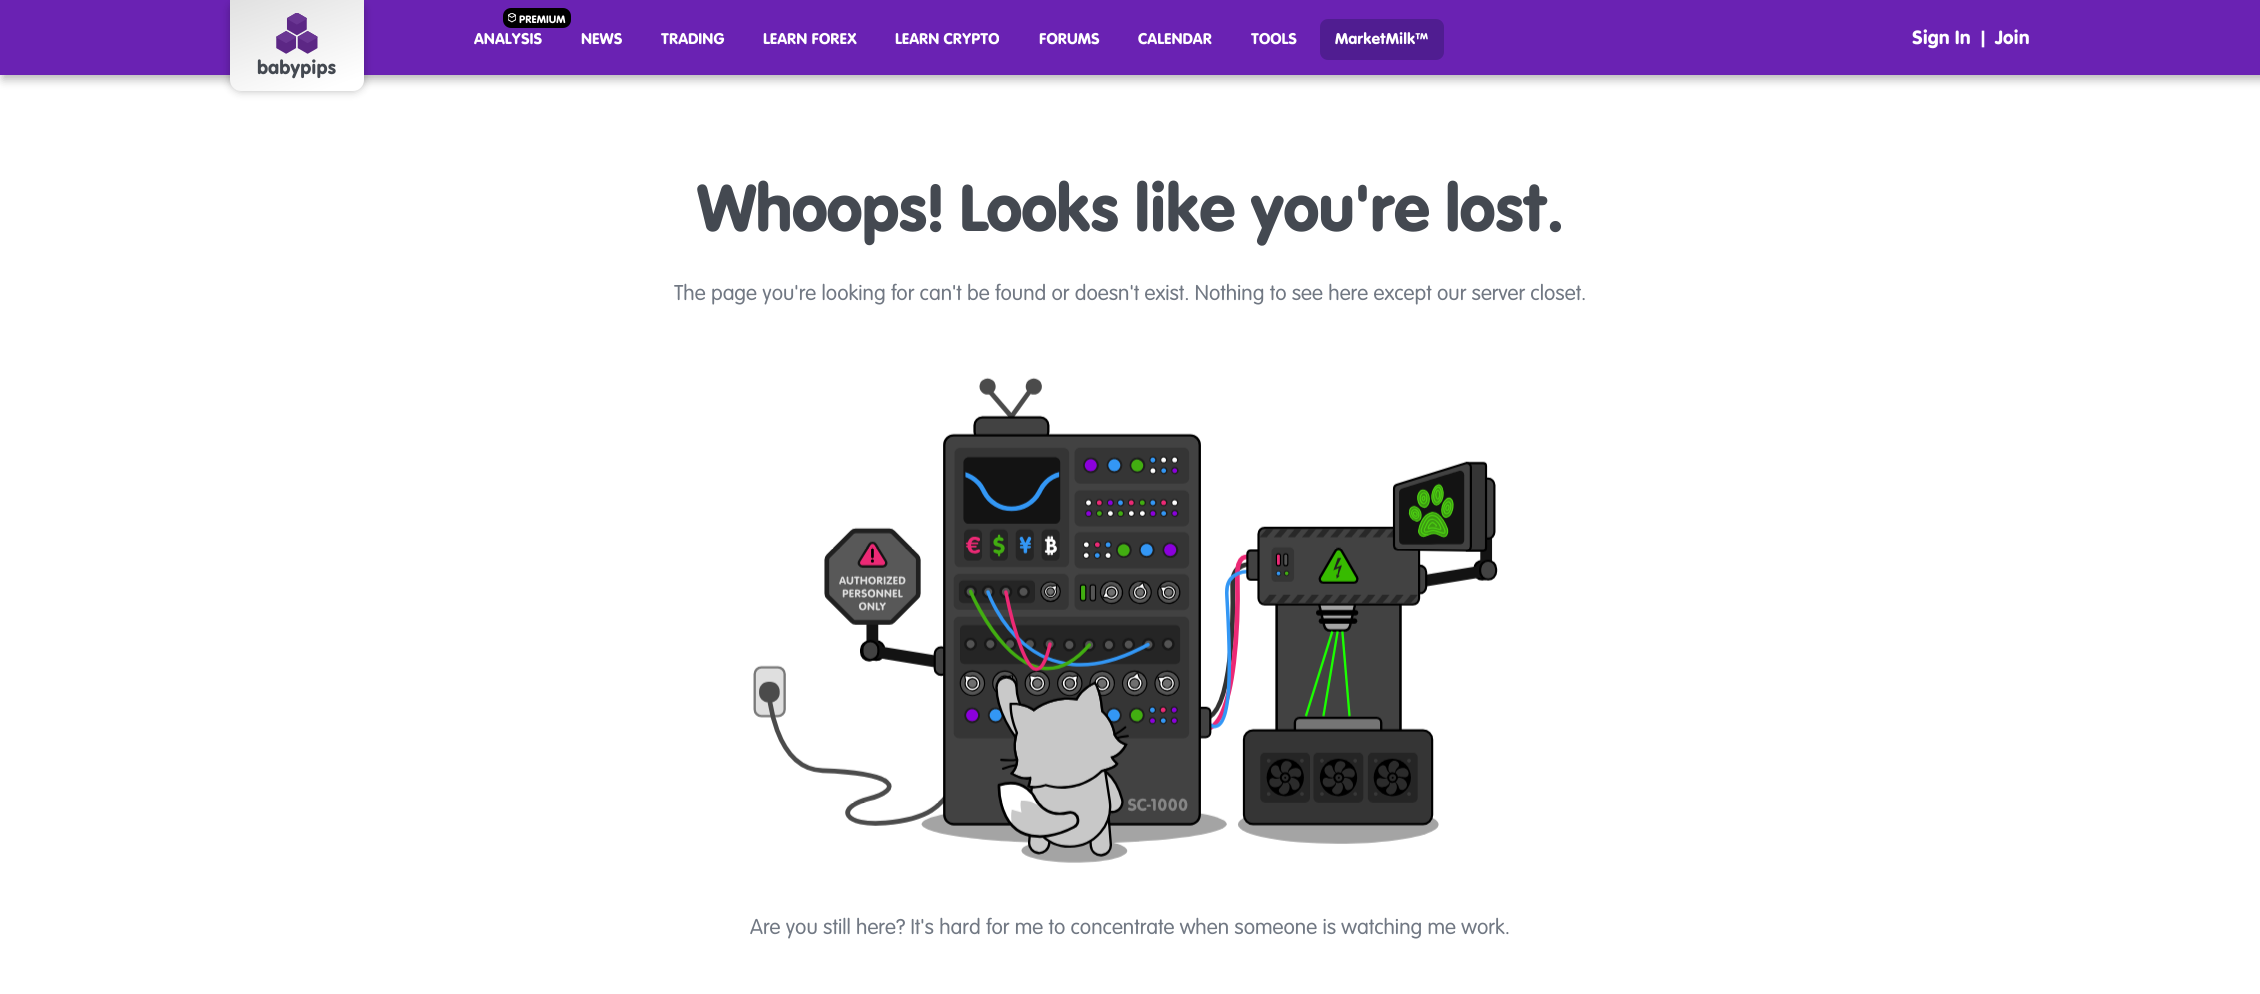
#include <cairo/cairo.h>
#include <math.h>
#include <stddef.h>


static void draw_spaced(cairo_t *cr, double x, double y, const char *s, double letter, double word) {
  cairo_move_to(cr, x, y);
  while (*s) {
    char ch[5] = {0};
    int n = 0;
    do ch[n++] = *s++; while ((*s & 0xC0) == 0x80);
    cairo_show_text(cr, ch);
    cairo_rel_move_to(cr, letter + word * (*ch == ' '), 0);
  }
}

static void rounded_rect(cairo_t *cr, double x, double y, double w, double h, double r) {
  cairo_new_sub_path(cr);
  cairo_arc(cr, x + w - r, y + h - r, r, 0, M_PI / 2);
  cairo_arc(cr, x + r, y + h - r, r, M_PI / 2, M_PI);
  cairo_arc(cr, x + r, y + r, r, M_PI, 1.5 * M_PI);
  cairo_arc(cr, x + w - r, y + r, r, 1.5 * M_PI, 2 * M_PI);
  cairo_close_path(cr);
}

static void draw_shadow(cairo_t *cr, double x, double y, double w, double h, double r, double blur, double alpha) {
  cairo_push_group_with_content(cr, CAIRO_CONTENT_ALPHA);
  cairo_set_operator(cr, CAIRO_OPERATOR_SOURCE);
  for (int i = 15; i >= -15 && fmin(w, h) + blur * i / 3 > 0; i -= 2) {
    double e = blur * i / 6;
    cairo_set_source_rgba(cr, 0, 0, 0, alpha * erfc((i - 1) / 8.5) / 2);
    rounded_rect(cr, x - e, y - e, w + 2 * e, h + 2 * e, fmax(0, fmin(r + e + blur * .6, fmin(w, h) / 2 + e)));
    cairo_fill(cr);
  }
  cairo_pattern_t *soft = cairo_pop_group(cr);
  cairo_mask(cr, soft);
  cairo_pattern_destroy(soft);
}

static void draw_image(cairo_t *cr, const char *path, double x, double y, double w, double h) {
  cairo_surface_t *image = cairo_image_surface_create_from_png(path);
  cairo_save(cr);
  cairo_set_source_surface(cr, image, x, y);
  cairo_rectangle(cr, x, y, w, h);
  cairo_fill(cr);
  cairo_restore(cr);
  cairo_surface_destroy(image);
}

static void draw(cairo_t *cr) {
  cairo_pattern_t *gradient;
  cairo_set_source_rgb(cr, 1, 1, 1);
  cairo_paint(cr);
  cairo_set_source_rgb(cr, 0, 0, 0);
  draw_shadow(cr, 3, 4, 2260, 75, 0, 5, 0.3);
  cairo_set_source_rgb(cr, 106 / 255.0, 34 / 255.0, 179 / 255.0);
  cairo_rectangle(cr, 0, 0, 2260, 75);
  cairo_fill(cr);
  cairo_set_source_rgb(cr, 0, 0, 0);
  rounded_rect(cr, 503, 8, 68, 20, 8);
  cairo_fill(cr);
  draw_image(cr, "images/1.png", 508, 13, 8, 10);
  cairo_set_source_rgb(cr, 80 / 255.0, 29 / 255.0, 145 / 255.0);
  rounded_rect(cr, 1320, 19, 124, 41, 8);
  cairo_fill(cr);
  cairo_set_source_rgb(cr, 0, 0, 0);
  draw_shadow(cr, 230, 0, 134, 91, 11, 4.5, 0.27);
  gradient = cairo_pattern_create_linear(274, -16, 319, 107);
  cairo_pattern_add_color_stop_rgba(gradient, 0, 225 / 255.0, 225 / 255.0, 225 / 255.0, 1);
  cairo_pattern_add_color_stop_rgba(gradient, 0.9, 1, 1, 1, 1);
  cairo_set_source(cr, gradient);
  cairo_pattern_destroy(gradient);
  cairo_new_path(cr);
  cairo_move_to(cr, 230, 0);
  cairo_line_to(cr, 364, 0);
  cairo_line_to(cr, 364, 80);
  cairo_curve_to(cr, 364, 86, 359, 91, 353, 91);
  cairo_line_to(cr, 241, 91);
  cairo_curve_to(cr, 235, 91, 230, 86, 230, 80);
  cairo_close_path(cr);
  cairo_fill(cr);
  draw_image(cr, "images/2.png", 276, 13, 42, 41);
  draw_image(cr, "images/3.png", 753, 377, 745, 486);
  cairo_select_font_face(cr, "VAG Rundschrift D", CAIRO_FONT_SLANT_NORMAL, CAIRO_FONT_WEIGHT_NORMAL);
  cairo_set_font_size(cr, 11.25);
  cairo_set_source_rgb(cr, 1, 1, 1);
  cairo_move_to(cr, 519, 23);
  cairo_show_text(cr, "PREMIUM");
  cairo_set_font_size(cr, 16.25);
  cairo_move_to(cr, 474, 44);
  cairo_show_text(cr, "ANALYSIS");
  cairo_move_to(cr, 581, 44);
  cairo_show_text(cr, "NEWS");
  cairo_move_to(cr, 661, 44);
  cairo_show_text(cr, "TRADING");
  cairo_move_to(cr, 763, 44);
  cairo_show_text(cr, "LEARN FOREX");
  cairo_move_to(cr, 895, 44);
  cairo_show_text(cr, "LEARN CRYPTO");
  cairo_move_to(cr, 1039, 44);
  cairo_show_text(cr, "FORUMS");
  cairo_move_to(cr, 1138, 44);
  cairo_show_text(cr, "CALENDAR");
  cairo_move_to(cr, 1251, 44);
  cairo_show_text(cr, "TOOLS");
  cairo_move_to(cr, 1335, 44);
  cairo_show_text(cr, "MarketMilk™");
  cairo_set_font_size(cr, 20);
  cairo_move_to(cr, 1912, 44);
  cairo_show_text(cr, "Sign In");
  cairo_move_to(cr, 1978, 44);
  cairo_show_text(cr, "|");
  cairo_move_to(cr, 1995, 44);
  cairo_show_text(cr, "Join");
  cairo_set_source_rgb(cr, 68 / 255.0, 73 / 255.0, 81 / 255.0);
  cairo_move_to(cr, 257, 74);
  cairo_show_text(cr, "babypips");
  cairo_set_font_size(cr, 68.75);
  draw_spaced(cr, 697, 231, "Whoops! Looks like you're lost.", -1.25, 0);
  cairo_select_font_face(cr, "VAG Rundschrift D Light", CAIRO_FONT_SLANT_NORMAL, CAIRO_FONT_WEIGHT_NORMAL);
  cairo_set_font_size(cr, 22.5);
  cairo_set_source_rgb(cr, 113 / 255.0, 120 / 255.0, 131 / 255.0);
  cairo_move_to(cr, 674, 300);
  cairo_show_text(cr, "The page you're looking for can't be found or doesn't exist. Nothing to see here except our server closet.");
  cairo_move_to(cr, 750, 934);
  cairo_show_text(cr, "Are you still here? It's hard for me to concentrate when someone is watching me work.");
}

int main(void) {
  cairo_surface_t *surface = cairo_image_surface_create(CAIRO_FORMAT_RGB24, 2260, 994);
  cairo_t *cr = cairo_create(surface);
  cairo_font_options_t *options = cairo_font_options_create();
  cairo_font_options_set_hint_metrics(options, CAIRO_HINT_METRICS_OFF);
  cairo_font_options_set_hint_style(options, CAIRO_HINT_STYLE_NONE);
  cairo_set_font_options(cr, options);
  cairo_set_miter_limit(cr, 4);
  draw(cr);
  cairo_surface_write_to_png(surface, "out.png");
  cairo_font_options_destroy(options);
  cairo_destroy(cr);
  cairo_surface_destroy(surface);
  return 0;
}
